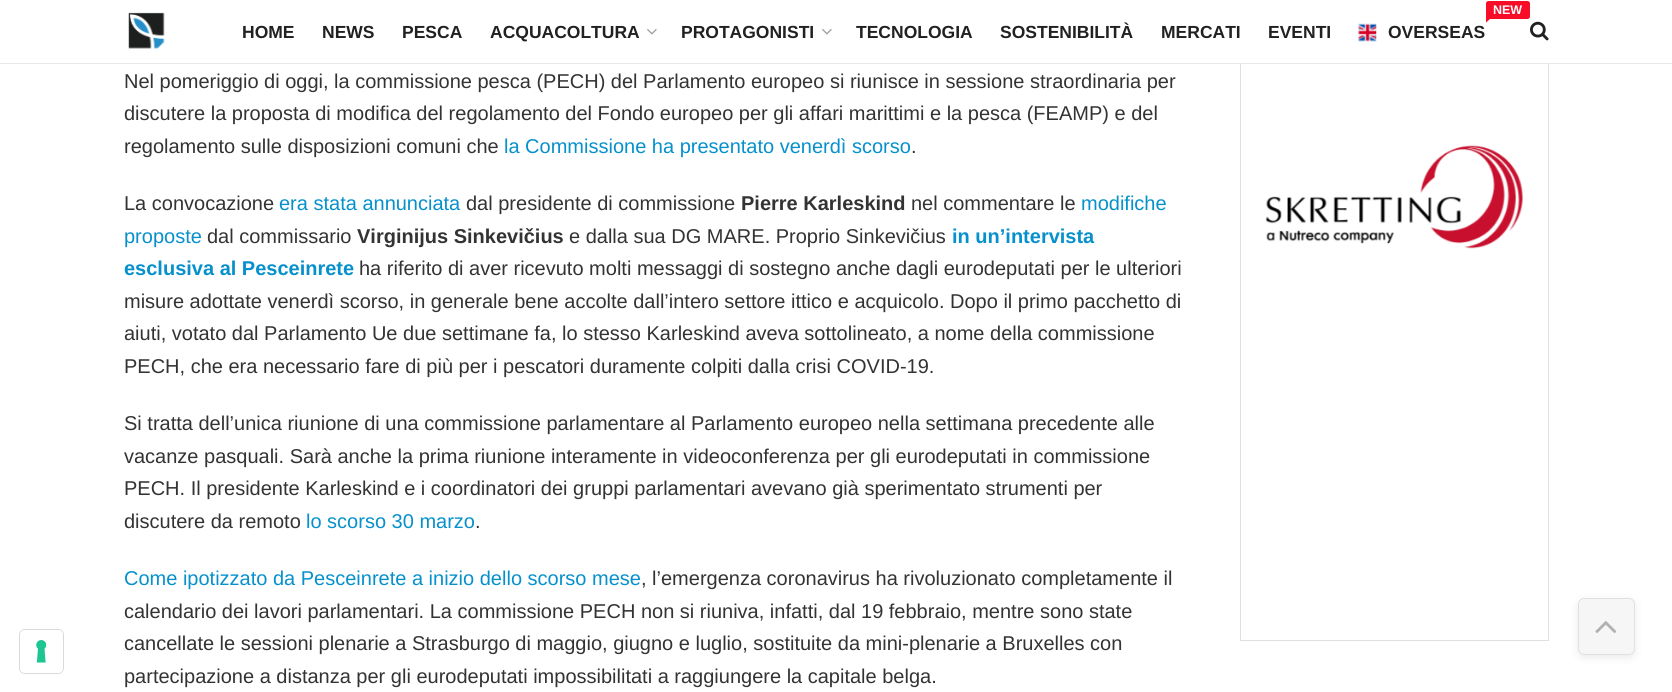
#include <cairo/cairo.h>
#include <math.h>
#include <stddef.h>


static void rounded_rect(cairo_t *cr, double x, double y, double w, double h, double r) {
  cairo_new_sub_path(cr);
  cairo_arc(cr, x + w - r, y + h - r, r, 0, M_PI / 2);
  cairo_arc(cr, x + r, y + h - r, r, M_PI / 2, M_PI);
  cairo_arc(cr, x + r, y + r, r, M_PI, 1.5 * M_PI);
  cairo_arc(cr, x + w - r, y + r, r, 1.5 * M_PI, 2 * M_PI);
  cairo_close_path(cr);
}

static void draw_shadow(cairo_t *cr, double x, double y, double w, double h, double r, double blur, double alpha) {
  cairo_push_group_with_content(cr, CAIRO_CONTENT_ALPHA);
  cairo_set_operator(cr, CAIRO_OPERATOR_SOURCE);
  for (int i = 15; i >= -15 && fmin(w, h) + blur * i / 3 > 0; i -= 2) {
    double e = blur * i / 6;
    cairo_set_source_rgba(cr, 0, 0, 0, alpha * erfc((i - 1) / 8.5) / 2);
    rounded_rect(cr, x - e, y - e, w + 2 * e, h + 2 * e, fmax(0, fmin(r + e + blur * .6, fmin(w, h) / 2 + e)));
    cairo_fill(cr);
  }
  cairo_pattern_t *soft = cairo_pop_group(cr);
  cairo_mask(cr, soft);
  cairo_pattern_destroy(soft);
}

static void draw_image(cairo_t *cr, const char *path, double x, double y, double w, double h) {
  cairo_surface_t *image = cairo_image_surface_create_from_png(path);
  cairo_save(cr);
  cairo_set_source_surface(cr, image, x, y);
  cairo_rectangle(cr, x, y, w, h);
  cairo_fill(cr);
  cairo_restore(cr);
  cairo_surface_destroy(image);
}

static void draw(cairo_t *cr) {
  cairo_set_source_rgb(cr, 1, 1, 1);
  cairo_paint(cr);
  rounded_rect(cr, 19.5, 629.5, 44, 44, 5.5);
  cairo_set_source_rgb(cr, 217 / 255.0, 217 / 255.0, 217 / 255.0);
  cairo_set_line_width(cr, 1);
  cairo_stroke(cr);
  cairo_set_source_rgb(cr, 1, 1, 1);
  rounded_rect(cr, 20, 630, 43, 43, 5);
  cairo_fill(cr);
  draw_image(cr, "images/1.png", 36, 640, 11, 23);
  cairo_rectangle(cr, 1240.5, -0.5, 308, 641);
  cairo_set_source_rgb(cr, 224 / 255.0, 224 / 255.0, 224 / 255.0);
  cairo_stroke(cr);
  cairo_set_source_rgb(cr, 1, 1, 1);
  cairo_rectangle(cr, 1240, 0, 309, 63);
  cairo_fill(cr);
  cairo_set_source_rgb(cr, 232 / 255.0, 232 / 255.0, 232 / 255.0);
  cairo_rectangle(cr, 0, 63, 1672, 1);
  cairo_fill(cr);
  draw_image(cr, "images/2.png", 128, 12, 37, 37);
  draw_image(cr, "images/3.png", 647, 29, 10, 6);
  draw_image(cr, "images/3.png", 822, 29, 10, 6);
  cairo_set_source_rgb(cr, 247 / 255.0, 13 / 255.0, 40 / 255.0);
  rounded_rect(cr, 1486, 1, 44, 18, 2.5);
  cairo_fill(cr);
  cairo_new_path(cr);
  cairo_move_to(cr, 1486, 22.5);
  cairo_line_to(cr, 1486, 15);
  cairo_line_to(cr, 1490, 19);
  cairo_close_path(cr);
  cairo_fill(cr);
  draw_image(cr, "images/4.png", 1358, 23, 19, 19);
  draw_image(cr, "images/5.png", 1530, 21, 19, 20);
  draw_image(cr, "images/6.png", 1265, 145, 258, 104);
  cairo_save(cr);
  cairo_set_fill_rule(cr, CAIRO_FILL_RULE_EVEN_ODD);
  cairo_new_path(cr);
  cairo_move_to(cr, 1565, 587);
  cairo_line_to(cr, 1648, 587);
  cairo_line_to(cr, 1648, 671);
  cairo_line_to(cr, 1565, 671);
  cairo_close_path(cr);
  cairo_move_to(cr, 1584, 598);
  cairo_line_to(cr, 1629, 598);
  cairo_curve_to(cr, 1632.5, 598, 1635, 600.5, 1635, 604);
  cairo_line_to(cr, 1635, 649);
  cairo_curve_to(cr, 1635, 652.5, 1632.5, 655, 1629, 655);
  cairo_line_to(cr, 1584, 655);
  cairo_curve_to(cr, 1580.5, 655, 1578, 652.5, 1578, 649);
  cairo_line_to(cr, 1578, 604);
  cairo_curve_to(cr, 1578, 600.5, 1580.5, 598, 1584, 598);
  cairo_close_path(cr);
  cairo_clip(cr);
  cairo_set_source_rgb(cr, 51 / 255.0, 51 / 255.0, 51 / 255.0);
  draw_shadow(cr, 1578, 600, 57, 58, 6, 4, 0.1);
  cairo_restore(cr);
  cairo_set_source_rgba(cr, 196 / 255.0, 196 / 255.0, 196 / 255.0, 0.15);
  rounded_rect(cr, 1578, 598, 57, 57, 6);
  cairo_fill(cr);
  rounded_rect(cr, 1578.5, 598.5, 56, 56, 5.5);
  cairo_set_source_rgba(cr, 51 / 255.0, 51 / 255.0, 51 / 255.0, 0.11);
  cairo_stroke(cr);
  draw_image(cr, "images/7.png", 1595, 621, 22, 12);
  cairo_select_font_face(cr, "Liberation Sans", CAIRO_FONT_SLANT_NORMAL, CAIRO_FONT_WEIGHT_BOLD);
  cairo_set_font_size(cr, 17.5);
  cairo_set_source_rgb(cr, 33 / 255.0, 33 / 255.0, 33 / 255.0);
  cairo_move_to(cr, 242, 38);
  cairo_show_text(cr, "HOME");
  cairo_move_to(cr, 322, 38);
  cairo_show_text(cr, "NEWS");
  cairo_move_to(cr, 402, 38);
  cairo_show_text(cr, "PESCA");
  cairo_move_to(cr, 490, 38);
  cairo_show_text(cr, "ACQUACOLTURA");
  cairo_move_to(cr, 681, 38);
  cairo_show_text(cr, "PROTAGONISTI");
  cairo_move_to(cr, 856, 38);
  cairo_show_text(cr, "TECNOLOGIA");
  cairo_move_to(cr, 1000, 38);
  cairo_show_text(cr, "SOSTENIBILITÀ");
  cairo_move_to(cr, 1161, 38);
  cairo_show_text(cr, "MERCATI");
  cairo_move_to(cr, 1268, 38);
  cairo_show_text(cr, "EVENTI");
  cairo_set_font_size(cr, 12.5);
  cairo_set_source_rgb(cr, 1, 1, 1);
  cairo_move_to(cr, 1493, 14);
  cairo_show_text(cr, "NEW");
  cairo_set_font_size(cr, 17.5);
  cairo_set_source_rgb(cr, 33 / 255.0, 33 / 255.0, 33 / 255.0);
  cairo_move_to(cr, 1388, 38);
  cairo_show_text(cr, "OVERSEAS");
  cairo_select_font_face(cr, "Liberation Sans", CAIRO_FONT_SLANT_NORMAL, CAIRO_FONT_WEIGHT_NORMAL);
  cairo_set_font_size(cr, 20);
  cairo_set_source_rgb(cr, 51 / 255.0, 51 / 255.0, 51 / 255.0);
  cairo_move_to(cr, 124, 88);
  cairo_show_text(cr, "Nel pomeriggio di oggi, la commissione pesca (PECH) del Parlamento europeo si riunisce in sessione straordinaria per");
  cairo_move_to(cr, 124, 120);
  cairo_show_text(cr, "discutere la proposta di modifica del regolamento del Fondo europeo per gli affari marittimi e la pesca (FEAMP) e del");
  cairo_move_to(cr, 124, 153);
  cairo_show_text(cr, "regolamento sulle disposizioni comuni che");
  cairo_set_source_rgb(cr, 6 / 255.0, 144 / 255.0, 204 / 255.0);
  cairo_move_to(cr, 504, 153);
  cairo_show_text(cr, "la Commissione ha presentato venerdì scorso");
  cairo_set_source_rgb(cr, 51 / 255.0, 51 / 255.0, 51 / 255.0);
  cairo_move_to(cr, 911, 153);
  cairo_show_text(cr, ".");
  cairo_move_to(cr, 124, 210);
  cairo_show_text(cr, "La convocazione");
  cairo_set_source_rgb(cr, 6 / 255.0, 144 / 255.0, 204 / 255.0);
  cairo_move_to(cr, 279, 210);
  cairo_show_text(cr, "era stata annunciata");
  cairo_set_source_rgb(cr, 51 / 255.0, 51 / 255.0, 51 / 255.0);
  cairo_move_to(cr, 466, 210);
  cairo_show_text(cr, "dal presidente di commissione");
  cairo_select_font_face(cr, "Liberation Sans", CAIRO_FONT_SLANT_NORMAL, CAIRO_FONT_WEIGHT_BOLD);
  cairo_move_to(cr, 741, 210);
  cairo_show_text(cr, "Pierre Karleskind");
  cairo_select_font_face(cr, "Liberation Sans", CAIRO_FONT_SLANT_NORMAL, CAIRO_FONT_WEIGHT_NORMAL);
  cairo_move_to(cr, 911, 210);
  cairo_show_text(cr, "nel commentare le");
  cairo_set_source_rgb(cr, 6 / 255.0, 144 / 255.0, 204 / 255.0);
  cairo_move_to(cr, 1081, 210);
  cairo_show_text(cr, "modifiche");
  cairo_move_to(cr, 124, 243);
  cairo_show_text(cr, "proposte");
  cairo_set_source_rgb(cr, 51 / 255.0, 51 / 255.0, 51 / 255.0);
  cairo_move_to(cr, 207, 243);
  cairo_show_text(cr, "dal commissario");
  cairo_select_font_face(cr, "Liberation Sans", CAIRO_FONT_SLANT_NORMAL, CAIRO_FONT_WEIGHT_BOLD);
  cairo_move_to(cr, 357, 243);
  cairo_show_text(cr, "Virginijus Sinkevičius");
  cairo_select_font_face(cr, "Liberation Sans", CAIRO_FONT_SLANT_NORMAL, CAIRO_FONT_WEIGHT_NORMAL);
  cairo_move_to(cr, 569, 243);
  cairo_show_text(cr, "e dalla sua DG MARE. Proprio Sinkevičius");
  cairo_select_font_face(cr, "Liberation Sans", CAIRO_FONT_SLANT_NORMAL, CAIRO_FONT_WEIGHT_BOLD);
  cairo_set_source_rgb(cr, 6 / 255.0, 144 / 255.0, 204 / 255.0);
  cairo_move_to(cr, 952, 243);
  cairo_show_text(cr, "in un’intervista");
  cairo_move_to(cr, 124, 275);
  cairo_show_text(cr, "esclusiva al Pesceinrete");
  cairo_select_font_face(cr, "Liberation Sans", CAIRO_FONT_SLANT_NORMAL, CAIRO_FONT_WEIGHT_NORMAL);
  cairo_set_source_rgb(cr, 51 / 255.0, 51 / 255.0, 51 / 255.0);
  cairo_move_to(cr, 359, 275);
  cairo_show_text(cr, "ha riferito di aver ricevuto molti messaggi di sostegno anche dagli eurodeputati per le ulteriori");
  cairo_move_to(cr, 124, 308);
  cairo_show_text(cr, "misure adottate venerdì scorso, in generale bene accolte dall’intero settore ittico e acquicolo. Dopo il primo pacchetto di");
  cairo_move_to(cr, 124, 340);
  cairo_show_text(cr, "aiuti, votato dal Parlamento Ue due settimane fa, lo stesso Karleskind aveva sottolineato, a nome della commissione");
  cairo_move_to(cr, 124, 373);
  cairo_show_text(cr, "PECH, che era necessario fare di più per i pescatori duramente colpiti dalla crisi COVID-19.");
  cairo_move_to(cr, 124, 430);
  cairo_show_text(cr, "Si tratta dell’unica riunione di una commissione parlamentare al Parlamento europeo nella settimana precedente alle");
  cairo_move_to(cr, 124, 463);
  cairo_show_text(cr, "vacanze pasquali. Sarà anche la prima riunione interamente in videoconferenza per gli eurodeputati in commissione");
  cairo_move_to(cr, 124, 495);
  cairo_show_text(cr, "PECH. Il presidente Karleskind e i coordinatori dei gruppi parlamentari avevano già sperimentato strumenti per");
  cairo_move_to(cr, 124, 528);
  cairo_show_text(cr, "discutere da remoto");
  cairo_set_source_rgb(cr, 6 / 255.0, 144 / 255.0, 204 / 255.0);
  cairo_move_to(cr, 306, 528);
  cairo_show_text(cr, "lo scorso 30 marzo");
  cairo_set_source_rgb(cr, 51 / 255.0, 51 / 255.0, 51 / 255.0);
  cairo_move_to(cr, 475, 528);
  cairo_show_text(cr, ".");
  cairo_set_source_rgb(cr, 6 / 255.0, 144 / 255.0, 204 / 255.0);
  cairo_move_to(cr, 124, 585);
  cairo_show_text(cr, "Come ipotizzato da Pesceinrete a inizio dello scorso mese");
  cairo_set_source_rgb(cr, 51 / 255.0, 51 / 255.0, 51 / 255.0);
  cairo_move_to(cr, 641, 585);
  cairo_show_text(cr, ", l’emergenza coronavirus ha rivoluzionato completamente il");
  cairo_move_to(cr, 124, 618);
  cairo_show_text(cr, "calendario dei lavori parlamentari. La commissione PECH non si riuniva, infatti, dal 19 febbraio, mentre sono state");
  cairo_move_to(cr, 124, 650);
  cairo_show_text(cr, "cancellate le sessioni plenarie a Strasburgo di maggio, giugno e luglio, sostituite da mini-plenarie a Bruxelles con");
  cairo_move_to(cr, 124, 683);
  cairo_show_text(cr, "partecipazione a distanza per gli eurodeputati impossibilitati a raggiungere la capitale belga.");
}

int main(void) {
  cairo_surface_t *surface = cairo_image_surface_create(CAIRO_FORMAT_RGB24, 1672, 692);
  cairo_t *cr = cairo_create(surface);
  cairo_font_options_t *options = cairo_font_options_create();
  cairo_font_options_set_hint_metrics(options, CAIRO_HINT_METRICS_OFF);
  cairo_font_options_set_hint_style(options, CAIRO_HINT_STYLE_NONE);
  cairo_set_font_options(cr, options);
  cairo_set_miter_limit(cr, 4);
  draw(cr);
  cairo_surface_write_to_png(surface, "out.png");
  cairo_font_options_destroy(options);
  cairo_destroy(cr);
  cairo_surface_destroy(surface);
  return 0;
}
